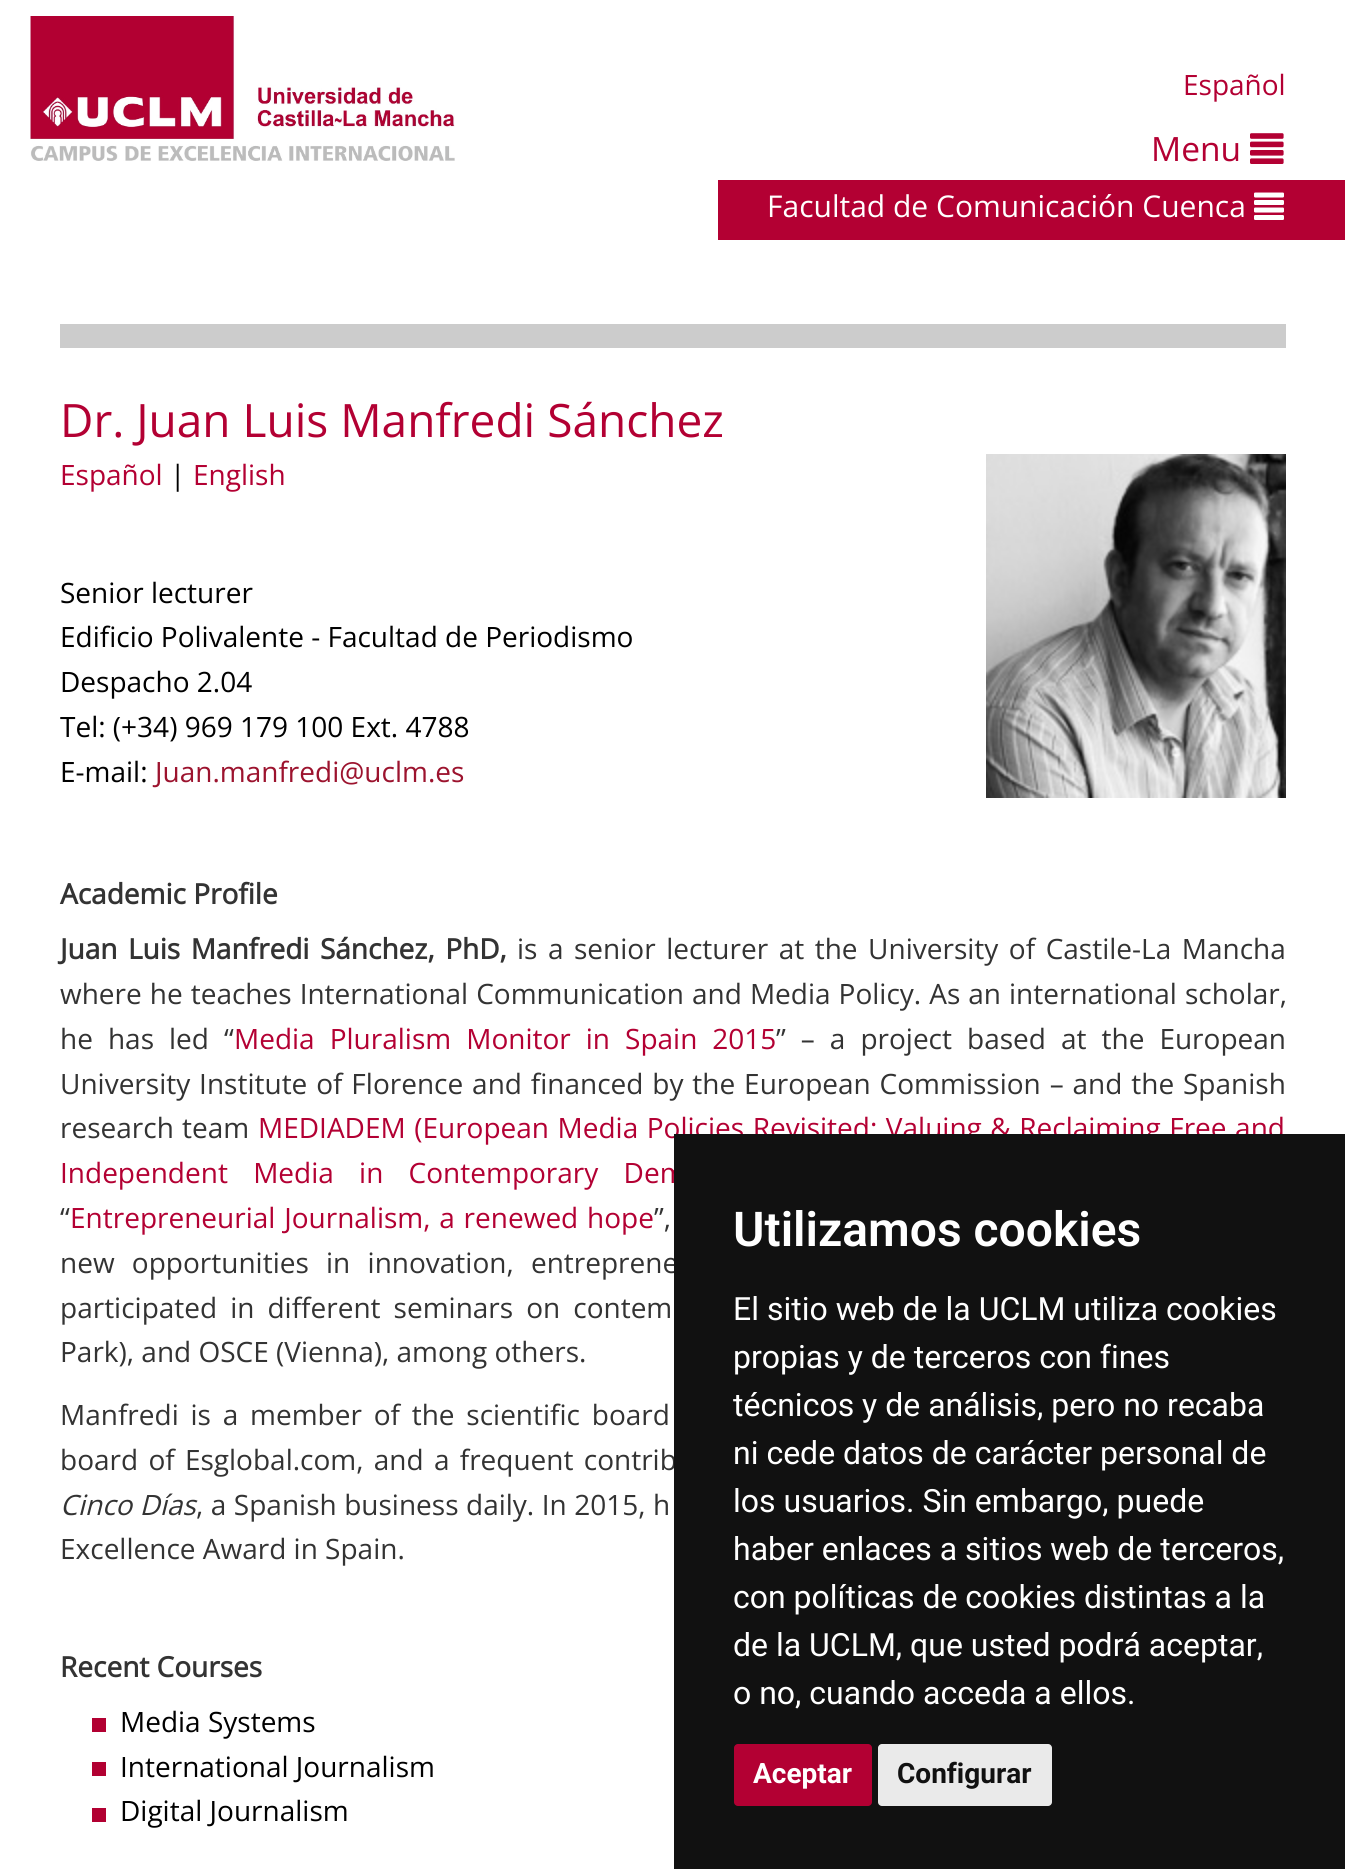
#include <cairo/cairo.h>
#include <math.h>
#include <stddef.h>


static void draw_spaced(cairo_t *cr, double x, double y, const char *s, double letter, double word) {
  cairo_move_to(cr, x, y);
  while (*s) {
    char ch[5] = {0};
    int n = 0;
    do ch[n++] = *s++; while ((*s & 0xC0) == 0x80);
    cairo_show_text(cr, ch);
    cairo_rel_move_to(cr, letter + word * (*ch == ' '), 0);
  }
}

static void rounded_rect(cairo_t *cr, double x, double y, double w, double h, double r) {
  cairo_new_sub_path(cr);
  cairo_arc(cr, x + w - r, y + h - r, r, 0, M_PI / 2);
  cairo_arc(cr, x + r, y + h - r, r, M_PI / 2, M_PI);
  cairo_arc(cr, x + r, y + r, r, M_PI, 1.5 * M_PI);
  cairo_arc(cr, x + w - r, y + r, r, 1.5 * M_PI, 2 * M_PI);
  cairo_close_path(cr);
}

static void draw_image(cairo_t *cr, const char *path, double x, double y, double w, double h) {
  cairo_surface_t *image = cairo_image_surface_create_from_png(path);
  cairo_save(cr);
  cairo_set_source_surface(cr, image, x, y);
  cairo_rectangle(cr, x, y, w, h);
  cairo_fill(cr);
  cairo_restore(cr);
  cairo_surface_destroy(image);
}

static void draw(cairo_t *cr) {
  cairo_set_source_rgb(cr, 1, 1, 1);
  cairo_paint(cr);
  draw_image(cr, "images/1.png", 30, 16, 425, 145);
  draw_image(cr, "images/2.png", 1250, 133, 34, 31);
  cairo_set_source_rgb(cr, 179 / 255.0, 0, 51 / 255.0);
  cairo_rectangle(cr, 718, 180, 627, 60);
  cairo_fill(cr);
  draw_image(cr, "images/3.png", 1254, 192, 30, 28);
  cairo_set_source_rgb(cr, 204 / 255.0, 204 / 255.0, 204 / 255.0);
  cairo_rectangle(cr, 60, 324, 1226, 24);
  cairo_fill(cr);
  draw_image(cr, "images/4.png", 986, 454, 300, 344);
  cairo_set_source_rgb(cr, 178 / 255.0, 0, 50 / 255.0);
  cairo_rectangle(cr, 92, 1718, 14, 14);
  cairo_fill(cr);
  cairo_rectangle(cr, 92, 1762, 14, 14);
  cairo_fill(cr);
  cairo_rectangle(cr, 92, 1808, 14, 14);
  cairo_fill(cr);
  cairo_select_font_face(cr, "Open Sans", CAIRO_FONT_SLANT_NORMAL, CAIRO_FONT_WEIGHT_NORMAL);
  cairo_set_font_size(cr, 28);
  cairo_set_source_rgb(cr, 179 / 255.0, 0, 51 / 255.0);
  cairo_move_to(cr, 1183, 95);
  cairo_show_text(cr, "Español");
  cairo_set_font_size(cr, 33.5);
  cairo_move_to(cr, 1151, 161);
  cairo_show_text(cr, "Menu");
  cairo_set_font_size(cr, 30);
  cairo_set_source_rgb(cr, 1, 1, 1);
  cairo_move_to(cr, 767, 217);
  cairo_show_text(cr, "Facultad de Comunicación Cuenca");
  cairo_set_font_size(cr, 46);
  cairo_set_source_rgb(cr, 179 / 255.0, 0, 51 / 255.0);
  cairo_move_to(cr, 60, 437);
  cairo_show_text(cr, "Dr. Juan Luis Manfredi Sánchez");
  cairo_set_font_size(cr, 28);
  cairo_move_to(cr, 60, 485);
  cairo_show_text(cr, "Español");
  cairo_set_source_rgb(cr, 0, 0, 0);
  cairo_move_to(cr, 170, 485);
  cairo_show_text(cr, "|");
  cairo_set_source_rgb(cr, 179 / 255.0, 0, 51 / 255.0);
  cairo_move_to(cr, 193, 485);
  cairo_show_text(cr, "English");
  cairo_set_source_rgb(cr, 0, 0, 0);
  cairo_move_to(cr, 60, 603);
  cairo_show_text(cr, "Senior lecturer");
  cairo_move_to(cr, 60, 647);
  cairo_show_text(cr, "Edificio Polivalente - Facultad de Periodismo");
  cairo_move_to(cr, 60, 692);
  cairo_show_text(cr, "Despacho 2.04");
  cairo_move_to(cr, 60, 737);
  cairo_show_text(cr, "Tel: (+34) 969 179 100 Ext. 4788");
  cairo_move_to(cr, 60, 782);
  cairo_show_text(cr, "E-mail:");
  cairo_set_source_rgb(cr, 156 / 255.0, 19 / 255.0, 46 / 255.0);
  cairo_move_to(cr, 155, 782);
  cairo_show_text(cr, "Juan.manfredi@uclm.es");
  cairo_select_font_face(cr, "Open Sans", CAIRO_FONT_SLANT_NORMAL, CAIRO_FONT_WEIGHT_BOLD);
  cairo_set_source_rgb(cr, 51 / 255.0, 51 / 255.0, 51 / 255.0);
  cairo_move_to(cr, 60, 904);
  cairo_show_text(cr, "Academic Profile");
  draw_spaced(cr, 60, 959, "Juan Luis Manfredi Sánchez, PhD,", 0, 3.25);
  cairo_select_font_face(cr, "Open Sans", CAIRO_FONT_SLANT_NORMAL, CAIRO_FONT_WEIGHT_NORMAL);
  draw_spaced(cr, 517, 959, "is a senior lecturer at the University of Castile-La Mancha", 0, 3.25);
  draw_spaced(cr, 60, 1004, "where he teaches International Communication and Media Policy. As an international scholar,", 0, 0.75);
  draw_spaced(cr, 60, 1049, "he has led “", 0, 7.75);
  cairo_set_source_rgb(cr, 179 / 255.0, 0, 51 / 255.0);
  draw_spaced(cr, 234, 1049, "Media Pluralism Monitor in Spain 2015", 0, 7.75);
  cairo_set_source_rgb(cr, 51 / 255.0, 51 / 255.0, 51 / 255.0);
  draw_spaced(cr, 776, 1049, "” – a project based at the European", 0, 7.75);
  draw_spaced(cr, 60, 1094, "University Institute of Florence and financed by the European Commission – and the Spanish", 0, 1.6);
  draw_spaced(cr, 60, 1138, "research team", 0, 1);
  cairo_set_source_rgb(cr, 179 / 255.0, 0, 51 / 255.0);
  draw_spaced(cr, 258, 1138, "MEDIADEM (European Media Policies Revisited: Valuing & Reclaiming Free and", 0, 1.25);
  draw_spaced(cr, 60, 1183, "Independent Media in Contemporary Dem", 0, 18);
  cairo_set_source_rgb(cr, 51 / 255.0, 51 / 255.0, 51 / 255.0);
  cairo_move_to(cr, 60, 1228);
  cairo_show_text(cr, "“");
  cairo_set_source_rgb(cr, 179 / 255.0, 0, 51 / 255.0);
  draw_spaced(cr, 70, 1228, "Entrepreneurial Journalism, a renewed hope", 0, 1.5);
  cairo_set_source_rgb(cr, 51 / 255.0, 51 / 255.0, 51 / 255.0);
  draw_spaced(cr, 654, 1228, "”,", 0, 1.6);
  draw_spaced(cr, 60, 1273, "new opportunities in innovation, entreprene", 0, 10);
  draw_spaced(cr, 60, 1318, "participated in different seminars on contem", 0, 5.75);
  cairo_move_to(cr, 60, 1362);
  cairo_show_text(cr, "Park), and OSCE (Vienna), among others.");
  draw_spaced(cr, 60, 1425, "Manfredi is a member of the scientific board", 0, 4.5);
  draw_spaced(cr, 60, 1470, "board of Esglobal.com, and a frequent contrib", 0, 3);
  cairo_select_font_face(cr, "Open Sans", CAIRO_FONT_SLANT_ITALIC, CAIRO_FONT_WEIGHT_NORMAL);
  cairo_move_to(cr, 60, 1515);
  cairo_show_text(cr, "Cinco Días");
  cairo_select_font_face(cr, "Open Sans", CAIRO_FONT_SLANT_NORMAL, CAIRO_FONT_WEIGHT_NORMAL);
  draw_spaced(cr, 196, 1515, ", a Spanish business daily. In 2015, h", 0, 0.25);
  cairo_move_to(cr, 60, 1559);
  cairo_show_text(cr, "Excellence Award in Spain.");
  cairo_select_font_face(cr, "Open Sans", CAIRO_FONT_SLANT_NORMAL, CAIRO_FONT_WEIGHT_BOLD);
  cairo_move_to(cr, 60, 1677);
  cairo_show_text(cr, "Recent Courses");
  cairo_select_font_face(cr, "Open Sans", CAIRO_FONT_SLANT_NORMAL, CAIRO_FONT_WEIGHT_NORMAL);
  cairo_set_source_rgb(cr, 0, 0, 0);
  cairo_move_to(cr, 120, 1732);
  cairo_show_text(cr, "Media Systems");
  cairo_move_to(cr, 120, 1777);
  cairo_show_text(cr, "International Journalism");
  cairo_move_to(cr, 120, 1821);
  cairo_show_text(cr, "Digital Journalism");
  cairo_set_source_rgb(cr, 17 / 255.0, 17 / 255.0, 17 / 255.0);
  cairo_rectangle(cr, 674, 1134, 671, 735);
  cairo_fill(cr);
  cairo_select_font_face(cr, "Roboto SemiBold", CAIRO_FONT_SLANT_NORMAL, CAIRO_FONT_WEIGHT_NORMAL);
  cairo_set_font_size(cr, 48);
  cairo_set_source_rgb(cr, 1, 1, 1);
  cairo_move_to(cr, 733, 1246);
  cairo_show_text(cr, "Utilizamos cookies");
  cairo_select_font_face(cr, "Roboto", CAIRO_FONT_SLANT_NORMAL, CAIRO_FONT_WEIGHT_NORMAL);
  cairo_set_font_size(cr, 32);
  cairo_move_to(cr, 733, 1320);
  cairo_show_text(cr, "El sitio web de la UCLM utiliza cookies");
  cairo_move_to(cr, 733, 1368);
  cairo_show_text(cr, "propias y de terceros con fines");
  cairo_move_to(cr, 733, 1416);
  cairo_show_text(cr, "técnicos y de análisis, pero no recaba");
  cairo_move_to(cr, 733, 1464);
  cairo_show_text(cr, "ni cede datos de carácter personal de");
  cairo_move_to(cr, 733, 1512);
  cairo_show_text(cr, "los usuarios. Sin embargo, puede");
  cairo_move_to(cr, 733, 1560);
  cairo_show_text(cr, "haber enlaces a sitios web de terceros,");
  cairo_move_to(cr, 733, 1608);
  cairo_show_text(cr, "con políticas de cookies distintas a la");
  cairo_move_to(cr, 733, 1656);
  cairo_show_text(cr, "de la UCLM, que usted podrá aceptar,");
  cairo_move_to(cr, 733, 1704);
  cairo_show_text(cr, "o no, cuando acceda a ellos.");
  cairo_set_source_rgb(cr, 179 / 255.0, 0, 51 / 255.0);
  rounded_rect(cr, 734, 1744, 138, 62, 4);
  cairo_fill(cr);
  cairo_select_font_face(cr, "Roboto", CAIRO_FONT_SLANT_NORMAL, CAIRO_FONT_WEIGHT_BOLD);
  cairo_set_font_size(cr, 28);
  cairo_set_source_rgb(cr, 1, 1, 1);
  cairo_move_to(cr, 753, 1783);
  cairo_show_text(cr, "Aceptar");
  cairo_set_source_rgb(cr, 234 / 255.0, 234 / 255.0, 234 / 255.0);
  rounded_rect(cr, 878, 1744, 174, 62, 4);
  cairo_fill(cr);
  cairo_set_source_rgb(cr, 17 / 255.0, 17 / 255.0, 17 / 255.0);
  cairo_move_to(cr, 897, 1783);
  cairo_show_text(cr, "Configurar");
}

int main(void) {
  cairo_surface_t *surface = cairo_image_surface_create(CAIRO_FORMAT_RGB24, 1345, 1869);
  cairo_t *cr = cairo_create(surface);
  cairo_font_options_t *options = cairo_font_options_create();
  cairo_font_options_set_hint_metrics(options, CAIRO_HINT_METRICS_OFF);
  cairo_font_options_set_hint_style(options, CAIRO_HINT_STYLE_NONE);
  cairo_set_font_options(cr, options);
  cairo_set_miter_limit(cr, 4);
  draw(cr);
  cairo_surface_write_to_png(surface, "out.png");
  cairo_font_options_destroy(options);
  cairo_destroy(cr);
  cairo_surface_destroy(surface);
  return 0;
}
